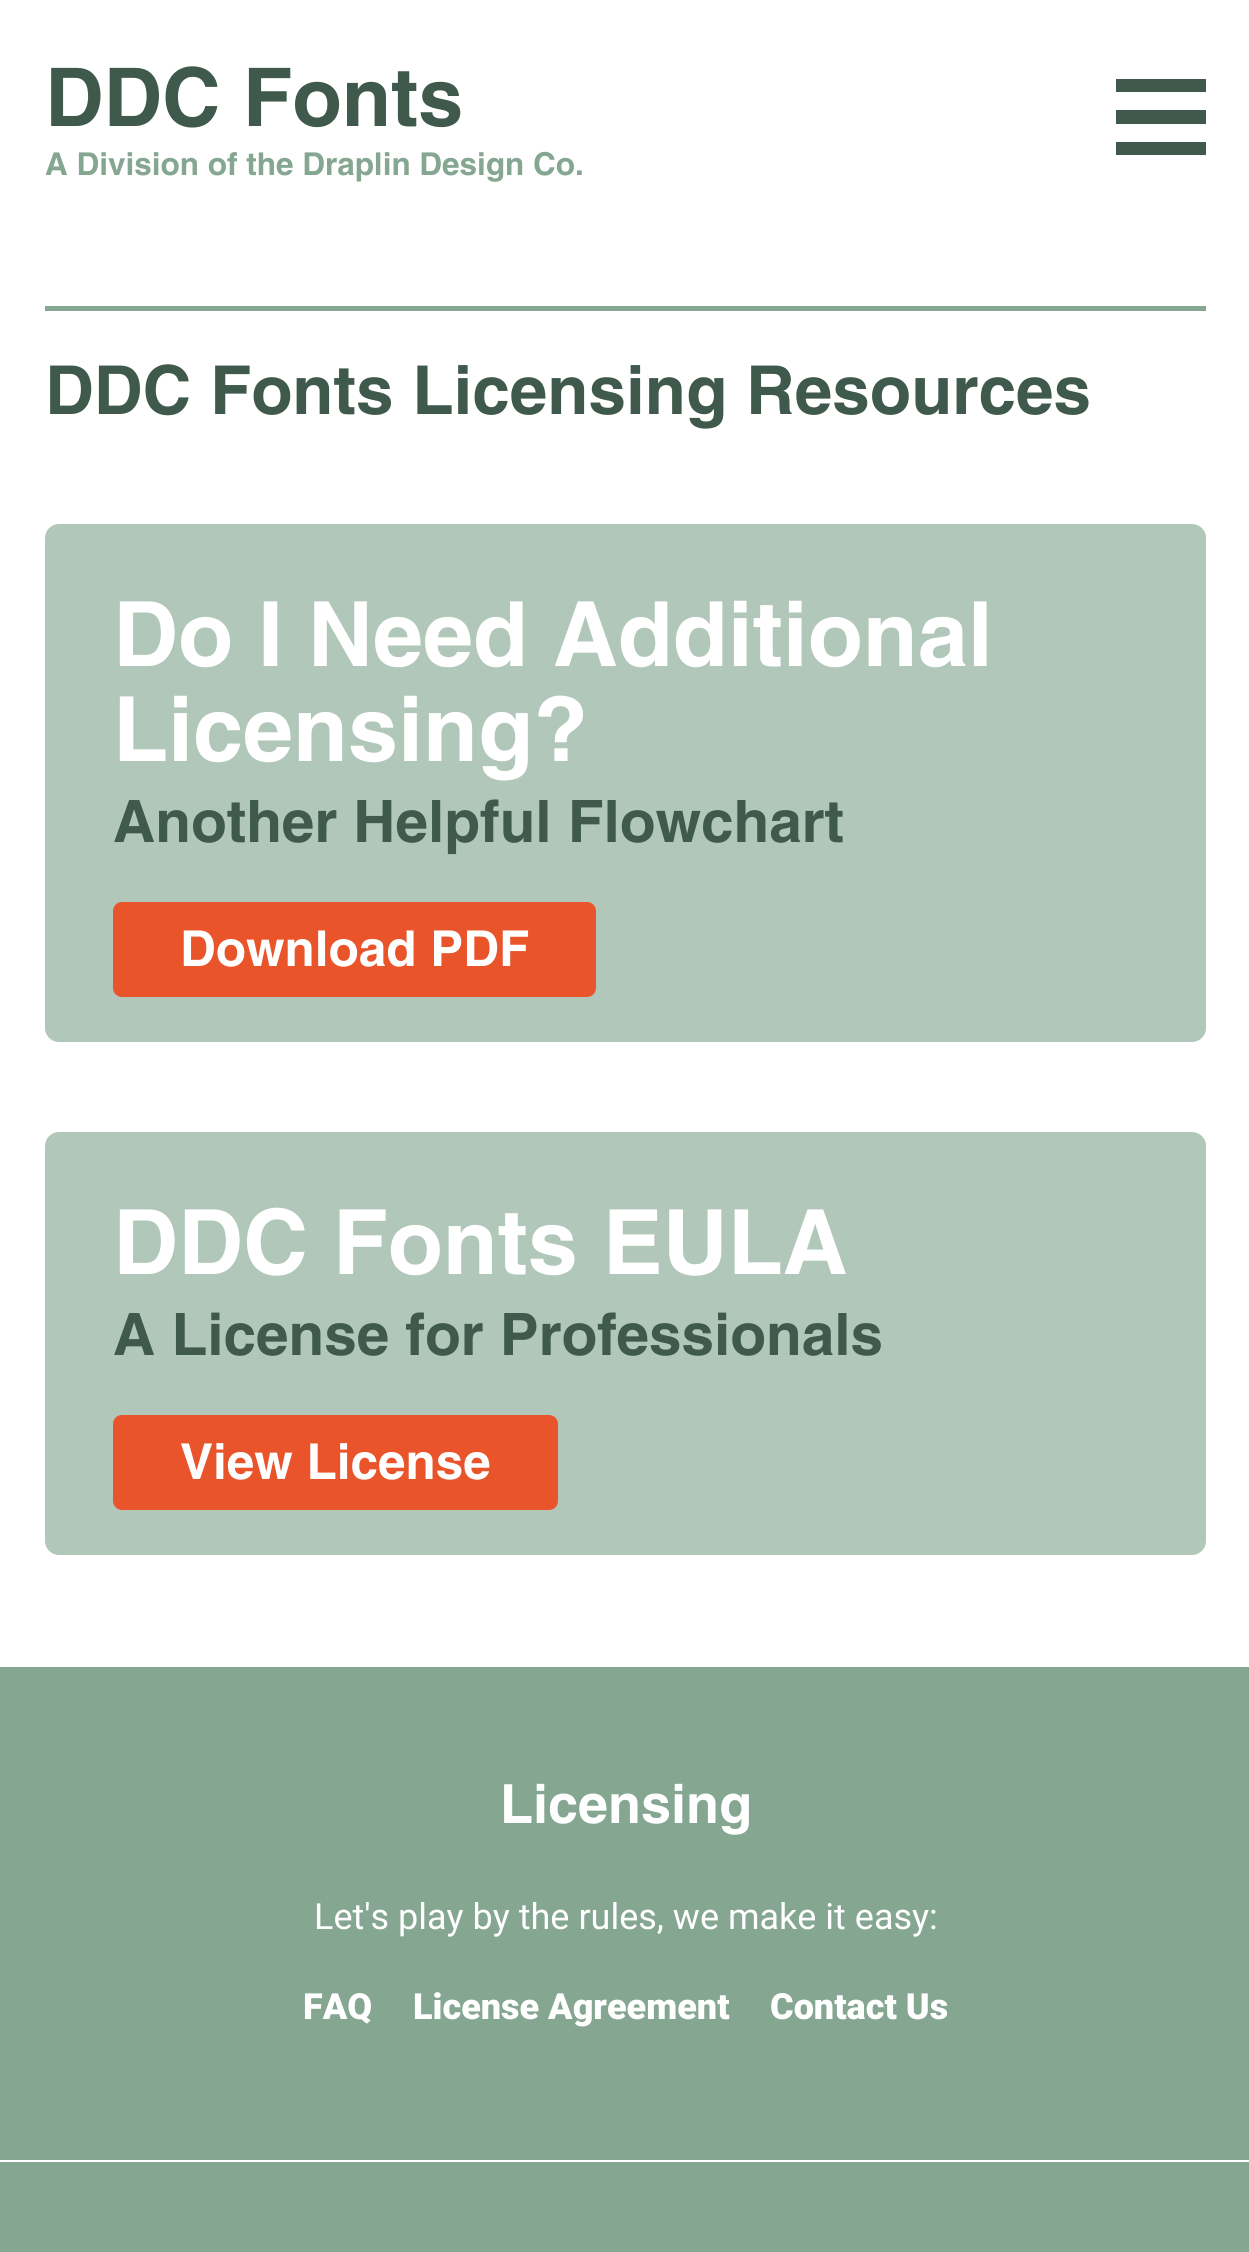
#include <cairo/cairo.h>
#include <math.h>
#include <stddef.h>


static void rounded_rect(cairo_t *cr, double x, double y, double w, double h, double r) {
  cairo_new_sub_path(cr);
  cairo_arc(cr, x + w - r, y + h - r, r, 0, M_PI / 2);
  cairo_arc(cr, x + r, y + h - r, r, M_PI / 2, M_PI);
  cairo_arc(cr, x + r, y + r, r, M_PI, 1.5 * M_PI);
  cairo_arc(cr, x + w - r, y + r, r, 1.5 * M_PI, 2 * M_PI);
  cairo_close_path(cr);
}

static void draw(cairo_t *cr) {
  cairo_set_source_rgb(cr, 1, 1, 1);
  cairo_paint(cr);
  cairo_set_source_rgb(cr, 63 / 255.0, 90 / 255.0, 77 / 255.0);
  cairo_rectangle(cr, 1116, 79, 90, 13);
  cairo_fill(cr);
  cairo_rectangle(cr, 1116, 110, 90, 14);
  cairo_fill(cr);
  cairo_rectangle(cr, 1116, 142, 90, 13);
  cairo_fill(cr);
  cairo_set_source_rgb(cr, 133 / 255.0, 166 / 255.0, 145 / 255.0);
  cairo_rectangle(cr, 45, 306, 1161, 5);
  cairo_fill(cr);
  cairo_set_source_rgb(cr, 177 / 255.0, 199 / 255.0, 185 / 255.0);
  rounded_rect(cr, 45, 524, 1161, 518, 14);
  cairo_fill(cr);
  cairo_set_source_rgb(cr, 233 / 255.0, 84 / 255.0, 43 / 255.0);
  rounded_rect(cr, 113, 902, 483, 95, 9);
  cairo_fill(cr);
  cairo_set_source_rgb(cr, 177 / 255.0, 199 / 255.0, 185 / 255.0);
  rounded_rect(cr, 45, 1132, 1161, 423, 14);
  cairo_fill(cr);
  cairo_set_source_rgb(cr, 233 / 255.0, 84 / 255.0, 43 / 255.0);
  rounded_rect(cr, 113, 1415, 445, 95, 9);
  cairo_fill(cr);
  cairo_set_source_rgb(cr, 133 / 255.0, 166 / 255.0, 145 / 255.0);
  cairo_rectangle(cr, 0, 1667, 1249, 585);
  cairo_fill(cr);
  cairo_set_source_rgb(cr, 1, 1, 1);
  cairo_rectangle(cr, 0, 2160, 1249, 2);
  cairo_fill(cr);
  cairo_select_font_face(cr, "Helvetica", CAIRO_FONT_SLANT_NORMAL, CAIRO_FONT_WEIGHT_BOLD);
  cairo_set_font_size(cr, 81);
  cairo_set_source_rgb(cr, 63 / 255.0, 90 / 255.0, 77 / 255.0);
  cairo_move_to(cr, 45, 126);
  cairo_show_text(cr, "DDC Fonts");
  cairo_set_font_size(cr, 31.5);
  cairo_set_source_rgb(cr, 133 / 255.0, 166 / 255.0, 145 / 255.0);
  cairo_move_to(cr, 45, 175);
  cairo_show_text(cr, "A Division of the Draplin Design Co.");
  cairo_set_font_size(cr, 67.5);
  cairo_set_source_rgb(cr, 63 / 255.0, 90 / 255.0, 77 / 255.0);
  cairo_move_to(cr, 45, 414);
  cairo_show_text(cr, "DDC Fonts Licensing Resources");
  cairo_set_font_size(cr, 90);
  cairo_set_source_rgb(cr, 1, 1, 1);
  cairo_move_to(cr, 113, 666);
  cairo_show_text(cr, "Do I Need Additional");
  cairo_move_to(cr, 113, 761);
  cairo_show_text(cr, "Licensing?");
  cairo_set_font_size(cr, 58.5);
  cairo_set_source_rgb(cr, 63 / 255.0, 90 / 255.0, 77 / 255.0);
  cairo_move_to(cr, 113, 842);
  cairo_show_text(cr, "Another Helpful Flowchart");
  cairo_set_font_size(cr, 49.5);
  cairo_set_source_rgb(cr, 1, 1, 1);
  cairo_move_to(cr, 180, 966);
  cairo_show_text(cr, "Download PDF");
  cairo_set_font_size(cr, 90);
  cairo_move_to(cr, 113, 1274);
  cairo_show_text(cr, "DDC Fonts EULA");
  cairo_set_font_size(cr, 58.5);
  cairo_set_source_rgb(cr, 63 / 255.0, 90 / 255.0, 77 / 255.0);
  cairo_move_to(cr, 113, 1355);
  cairo_show_text(cr, "A License for Professionals");
  cairo_set_font_size(cr, 49.5);
  cairo_set_source_rgb(cr, 1, 1, 1);
  cairo_move_to(cr, 180, 1479);
  cairo_show_text(cr, "View License");
  cairo_set_font_size(cr, 54);
  cairo_move_to(cr, 500, 1823);
  cairo_show_text(cr, "Licensing");
  cairo_select_font_face(cr, "Roboto", CAIRO_FONT_SLANT_NORMAL, CAIRO_FONT_WEIGHT_NORMAL);
  cairo_set_font_size(cr, 36);
  cairo_move_to(cr, 314, 1929);
  cairo_show_text(cr, "Let's play by the rules, we make it easy:");
  cairo_select_font_face(cr, "Roboto Black", CAIRO_FONT_SLANT_NORMAL, CAIRO_FONT_WEIGHT_NORMAL);
  cairo_move_to(cr, 303, 2019);
  cairo_show_text(cr, "FAQ");
  cairo_move_to(cr, 413, 2019);
  cairo_show_text(cr, "License Agreement");
  cairo_move_to(cr, 770, 2019);
  cairo_show_text(cr, "Contact Us");
}

int main(void) {
  cairo_surface_t *surface = cairo_image_surface_create(CAIRO_FORMAT_RGB24, 1249, 2252);
  cairo_t *cr = cairo_create(surface);
  cairo_font_options_t *options = cairo_font_options_create();
  cairo_font_options_set_hint_metrics(options, CAIRO_HINT_METRICS_OFF);
  cairo_font_options_set_hint_style(options, CAIRO_HINT_STYLE_NONE);
  cairo_set_font_options(cr, options);
  cairo_set_miter_limit(cr, 4);
  draw(cr);
  cairo_surface_write_to_png(surface, "out.png");
  cairo_font_options_destroy(options);
  cairo_destroy(cr);
  cairo_surface_destroy(surface);
  return 0;
}
